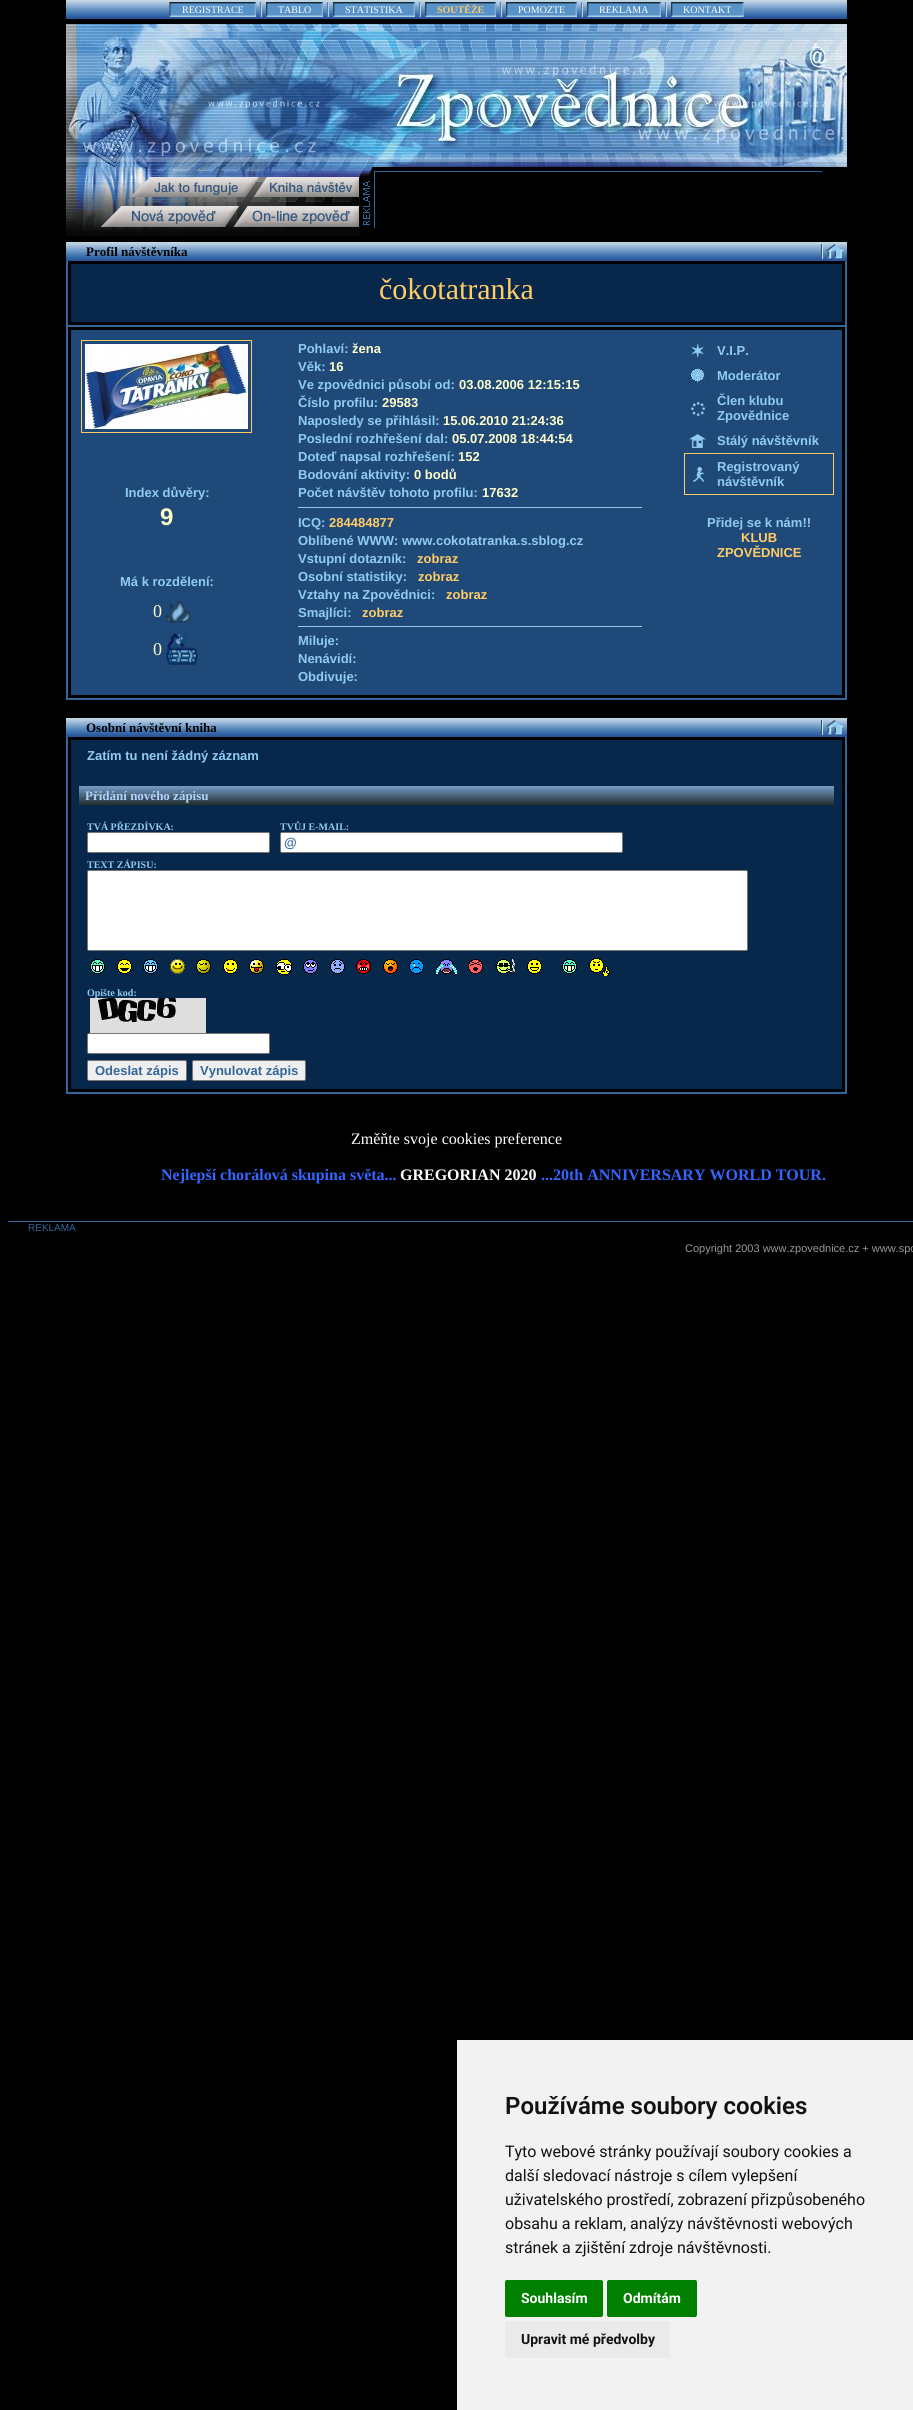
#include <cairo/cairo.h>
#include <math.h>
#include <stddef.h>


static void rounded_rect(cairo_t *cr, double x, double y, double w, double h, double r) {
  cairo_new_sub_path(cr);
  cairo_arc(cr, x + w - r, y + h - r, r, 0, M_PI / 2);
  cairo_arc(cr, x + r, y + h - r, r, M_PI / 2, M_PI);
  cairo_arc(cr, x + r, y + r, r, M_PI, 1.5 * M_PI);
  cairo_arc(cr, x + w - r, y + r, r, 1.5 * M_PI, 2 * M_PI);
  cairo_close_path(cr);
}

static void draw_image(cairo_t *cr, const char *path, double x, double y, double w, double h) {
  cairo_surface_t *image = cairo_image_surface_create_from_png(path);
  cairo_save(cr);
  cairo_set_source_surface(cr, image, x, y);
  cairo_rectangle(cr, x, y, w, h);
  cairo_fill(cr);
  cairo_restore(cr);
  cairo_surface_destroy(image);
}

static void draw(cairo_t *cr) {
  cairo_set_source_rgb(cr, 0, 0, 0);
  cairo_paint(cr);
  draw_image(cr, "images/1.png", 66, 0, 781, 19);
  draw_image(cr, "images/2.png", 169, 2, 3, 15);
  draw_image(cr, "images/3.png", 172, 0, 82, 19);
  draw_image(cr, "images/4.png", 254, 2, 14, 15);
  draw_image(cr, "images/5.png", 268, 0, 53, 19);
  draw_image(cr, "images/4.png", 321, 2, 14, 15);
  draw_image(cr, "images/6.png", 335, 0, 78, 19);
  draw_image(cr, "images/4.png", 413, 2, 14, 15);
  draw_image(cr, "images/7.png", 427, 0, 67, 19);
  draw_image(cr, "images/4.png", 494, 2, 14, 15);
  draw_image(cr, "images/7.png", 508, 0, 67, 19);
  draw_image(cr, "images/4.png", 575, 2, 14, 15);
  draw_image(cr, "images/8.png", 589, 0, 70, 19);
  draw_image(cr, "images/4.png", 659, 2, 14, 15);
  draw_image(cr, "images/9.png", 673, 0, 68, 19);
  draw_image(cr, "images/10.png", 741, 2, 3, 15);
  draw_image(cr, "images/11.png", 66, 24, 781, 24);
  draw_image(cr, "images/12.png", 66, 48, 781, 119);
  draw_image(cr, "images/13.png", 66, 167, 294, 9);
  draw_image(cr, "images/14.png", 360, 167, 19, 9);
  cairo_set_source_rgb(cr, 51 / 255.0, 102 / 255.0, 153 / 255.0);
  cairo_rectangle(cr, 379, 171, 443, 1);
  cairo_fill(cr);
  draw_image(cr, "images/15.png", 66, 176, 294, 60);
  draw_image(cr, "images/16.png", 363, 176, 12, 52);
  draw_image(cr, "images/17.png", 66, 242, 566, 19);
  draw_image(cr, "images/18.png", 632, 242, 215, 19);
  draw_image(cr, "images/19.png", 821, 244, 23, 15);
  cairo_rectangle(cr, 845, 261, 2, 439);
  cairo_fill(cr);
  cairo_rectangle(cr, 66, 325, 781, 2);
  cairo_fill(cr);
  cairo_rectangle(cr, 66, 261, 2, 66);
  cairo_fill(cr);
  cairo_set_source_rgb(cr, 7 / 255.0, 39 / 255.0, 75 / 255.0);
  cairo_rectangle(cr, 71, 264, 771, 58);
  cairo_fill(cr);
  cairo_set_source_rgb(cr, 51 / 255.0, 102 / 255.0, 153 / 255.0);
  cairo_rectangle(cr, 66, 698, 781, 2);
  cairo_fill(cr);
  cairo_rectangle(cr, 66, 327, 2, 373);
  cairo_fill(cr);
  cairo_set_source_rgb(cr, 31 / 255.0, 73 / 255.0, 120 / 255.0);
  cairo_rectangle(cr, 71, 330, 771, 365);
  cairo_fill(cr);
  cairo_rectangle(cr, 81.5, 340.5, 170, 92);
  cairo_set_source_rgb(cr, 1, 204 / 255.0, 102 / 255.0);
  cairo_set_line_width(cr, 1);
  cairo_stroke(cr);
  draw_image(cr, "images/20.png", 85, 344, 163, 85);
  draw_image(cr, "images/21.png", 166, 600, 24, 23);
  draw_image(cr, "images/22.png", 166, 633, 32, 32);
  cairo_set_source_rgb(cr, 144 / 255.0, 204 / 255.0, 241 / 255.0);
  cairo_rectangle(cr, 298, 507, 344, 1);
  cairo_fill(cr);
  cairo_rectangle(cr, 298, 626, 344, 1);
  cairo_fill(cr);
  draw_image(cr, "images/23.png", 691, 343, 13, 15);
  draw_image(cr, "images/24.png", 689, 368, 17, 15);
  draw_image(cr, "images/25.png", 691, 402, 14, 14);
  draw_image(cr, "images/26.png", 689, 434, 17, 14);
  cairo_set_source_rgb(cr, 1, 204 / 255.0, 102 / 255.0);
  cairo_rectangle(cr, 684, 453, 150, 1);
  cairo_fill(cr);
  cairo_rectangle(cr, 684, 494, 28, 1);
  cairo_fill(cr);
  cairo_rectangle(cr, 684, 453, 1, 42);
  cairo_fill(cr);
  draw_image(cr, "images/27.png", 693, 467, 11, 15);
  cairo_rectangle(cr, 833, 453, 1, 42);
  cairo_fill(cr);
  cairo_rectangle(cr, 712, 494, 122, 1);
  cairo_fill(cr);
  draw_image(cr, "images/28.png", 66, 718, 598, 19);
  draw_image(cr, "images/29.png", 664, 718, 183, 19);
  draw_image(cr, "images/19.png", 821, 720, 23, 15);
  cairo_set_source_rgb(cr, 51 / 255.0, 102 / 255.0, 153 / 255.0);
  cairo_rectangle(cr, 845, 737, 2, 357);
  cairo_fill(cr);
  cairo_rectangle(cr, 66, 1092, 781, 2);
  cairo_fill(cr);
  cairo_rectangle(cr, 66, 737, 2, 357);
  cairo_fill(cr);
  cairo_set_source_rgb(cr, 7 / 255.0, 39 / 255.0, 75 / 255.0);
  cairo_rectangle(cr, 71, 740, 771, 349);
  cairo_fill(cr);
  draw_image(cr, "images/30.png", 79, 786, 755, 19);
  cairo_set_source_rgb(cr, 1, 1, 1);
  rounded_rect(cr, 87.5, 832.5, 182, 20, 1.5);
  cairo_fill_preserve(cr);
  cairo_set_source_rgb(cr, 118 / 255.0, 118 / 255.0, 118 / 255.0);
  cairo_stroke(cr);
  cairo_set_source_rgb(cr, 1, 1, 1);
  rounded_rect(cr, 280.5, 832.5, 342, 20, 1.5);
  cairo_fill_preserve(cr);
  cairo_set_source_rgb(cr, 118 / 255.0, 118 / 255.0, 118 / 255.0);
  cairo_stroke(cr);
  cairo_set_source_rgb(cr, 1, 1, 1);
  rounded_rect(cr, 87.5, 870.5, 660, 80, 1.5);
  cairo_fill_preserve(cr);
  cairo_set_source_rgb(cr, 118 / 255.0, 118 / 255.0, 118 / 255.0);
  cairo_stroke(cr);
  draw_image(cr, "images/31.png", 90, 959, 15, 15);
  draw_image(cr, "images/32.png", 117, 959, 15, 15);
  draw_image(cr, "images/33.png", 143, 959, 15, 15);
  draw_image(cr, "images/34.png", 170, 959, 15, 15);
  draw_image(cr, "images/35.png", 196, 959, 15, 15);
  draw_image(cr, "images/36.png", 223, 959, 15, 15);
  draw_image(cr, "images/37.png", 249, 959, 15, 15);
  draw_image(cr, "images/38.png", 276, 959, 16, 16);
  draw_image(cr, "images/39.png", 303, 959, 15, 15);
  draw_image(cr, "images/40.png", 330, 959, 15, 15);
  draw_image(cr, "images/41.png", 356, 959, 15, 15);
  draw_image(cr, "images/42.png", 383, 959, 15, 15);
  draw_image(cr, "images/43.png", 409, 959, 15, 15);
  draw_image(cr, "images/44.png", 436, 959, 21, 15);
  draw_image(cr, "images/45.png", 468, 959, 15, 15);
  draw_image(cr, "images/46.png", 495, 959, 20, 15);
  draw_image(cr, "images/47.png", 527, 959, 50, 15);
  draw_image(cr, "images/48.png", 589, 958, 21, 18);
  cairo_set_source_rgb(cr, 1, 1, 1);
  rounded_rect(cr, 87.5, 1033.5, 182, 20, 1.5);
  cairo_fill_preserve(cr);
  cairo_set_source_rgb(cr, 118 / 255.0, 118 / 255.0, 118 / 255.0);
  cairo_stroke(cr);
  cairo_set_source_rgb(cr, 239 / 255.0, 239 / 255.0, 239 / 255.0);
  rounded_rect(cr, 87.5, 1060.5, 99, 20, 1.5);
  cairo_fill_preserve(cr);
  cairo_set_source_rgb(cr, 118 / 255.0, 118 / 255.0, 118 / 255.0);
  cairo_stroke(cr);
  cairo_set_source_rgb(cr, 239 / 255.0, 239 / 255.0, 239 / 255.0);
  rounded_rect(cr, 192.5, 1060.5, 113, 20, 1.5);
  cairo_fill_preserve(cr);
  cairo_set_source_rgb(cr, 118 / 255.0, 118 / 255.0, 118 / 255.0);
  cairo_stroke(cr);
  cairo_set_source_rgb(cr, 51 / 255.0, 102 / 255.0, 153 / 255.0);
  cairo_rectangle(cr, 8, 1221, 905, 1);
  cairo_fill(cr);
  cairo_set_source_rgb(cr, 242 / 255.0, 242 / 255.0, 242 / 255.0);
  cairo_rectangle(cr, 457, 2040, 456, 370);
  cairo_fill(cr);
  cairo_set_source_rgb(cr, 0, 128 / 255.0, 0);
  rounded_rect(cr, 505, 2280, 98, 37, 2);
  cairo_fill(cr);
  rounded_rect(cr, 607, 2280, 90, 37, 2);
  cairo_fill(cr);
  cairo_set_source_rgb(cr, 234 / 255.0, 234 / 255.0, 234 / 255.0);
  rounded_rect(cr, 505, 2321, 165, 37, 2);
  cairo_fill(cr);
  cairo_select_font_face(cr, "Liberation Serif", CAIRO_FONT_SLANT_NORMAL, CAIRO_FONT_WEIGHT_NORMAL);
  cairo_set_font_size(cr, 10);
  cairo_set_source_rgb(cr, 1, 1, 1);
  cairo_move_to(cr, 182, 13);
  cairo_show_text(cr, "REGISTRACE");
  cairo_move_to(cr, 278, 13);
  cairo_show_text(cr, "TABLO");
  cairo_move_to(cr, 345, 13);
  cairo_show_text(cr, "STATISTIKA");
  cairo_select_font_face(cr, "Liberation Serif", CAIRO_FONT_SLANT_NORMAL, CAIRO_FONT_WEIGHT_BOLD);
  cairo_set_source_rgb(cr, 1, 204 / 255.0, 102 / 255.0);
  cairo_move_to(cr, 437, 13);
  cairo_show_text(cr, "SOUTĚŽE");
  cairo_select_font_face(cr, "Liberation Serif", CAIRO_FONT_SLANT_NORMAL, CAIRO_FONT_WEIGHT_NORMAL);
  cairo_set_source_rgb(cr, 1, 1, 1);
  cairo_move_to(cr, 518, 13);
  cairo_show_text(cr, "POMOZTE");
  cairo_move_to(cr, 599, 13);
  cairo_show_text(cr, "REKLAMA");
  cairo_move_to(cr, 683, 13);
  cairo_show_text(cr, "KONTAKT");
  cairo_select_font_face(cr, "Liberation Serif", CAIRO_FONT_SLANT_NORMAL, CAIRO_FONT_WEIGHT_BOLD);
  cairo_set_font_size(cr, 13);
  cairo_set_source_rgb(cr, 0, 0, 0);
  cairo_move_to(cr, 86, 256);
  cairo_show_text(cr, "Profil návštěvníka");
  cairo_select_font_face(cr, "Liberation Serif", CAIRO_FONT_SLANT_NORMAL, CAIRO_FONT_WEIGHT_NORMAL);
  cairo_set_font_size(cr, 30);
  cairo_set_source_rgb(cr, 1, 204 / 255.0, 102 / 255.0);
  cairo_move_to(cr, 379, 299);
  cairo_show_text(cr, "čokotatranka");
  cairo_select_font_face(cr, "Liberation Sans", CAIRO_FONT_SLANT_NORMAL, CAIRO_FONT_WEIGHT_BOLD);
  cairo_set_font_size(cr, 13);
  cairo_set_source_rgb(cr, 144 / 255.0, 204 / 255.0, 241 / 255.0);
  cairo_move_to(cr, 125, 497);
  cairo_show_text(cr, "Index důvěry:");
  cairo_set_font_size(cr, 24);
  cairo_set_source_rgb(cr, 1, 1, 204 / 255.0);
  cairo_move_to(cr, 160, 525);
  cairo_show_text(cr, "9");
  cairo_set_font_size(cr, 13);
  cairo_set_source_rgb(cr, 144 / 255.0, 204 / 255.0, 241 / 255.0);
  cairo_move_to(cr, 120, 586);
  cairo_show_text(cr, "Má k rozdělení:");
  cairo_select_font_face(cr, "Liberation Serif", CAIRO_FONT_SLANT_NORMAL, CAIRO_FONT_WEIGHT_NORMAL);
  cairo_set_font_size(cr, 18);
  cairo_set_source_rgb(cr, 1, 1, 204 / 255.0);
  cairo_move_to(cr, 153, 617);
  cairo_show_text(cr, "0");
  cairo_move_to(cr, 153, 655);
  cairo_show_text(cr, "0");
  cairo_select_font_face(cr, "Liberation Sans", CAIRO_FONT_SLANT_NORMAL, CAIRO_FONT_WEIGHT_BOLD);
  cairo_set_font_size(cr, 13);
  cairo_set_source_rgb(cr, 144 / 255.0, 204 / 255.0, 241 / 255.0);
  cairo_move_to(cr, 298, 353);
  cairo_show_text(cr, "Pohlaví:");
  cairo_set_source_rgb(cr, 1, 1, 204 / 255.0);
  cairo_move_to(cr, 352, 353);
  cairo_show_text(cr, "žena");
  cairo_set_source_rgb(cr, 144 / 255.0, 204 / 255.0, 241 / 255.0);
  cairo_move_to(cr, 298, 371);
  cairo_show_text(cr, "Věk:");
  cairo_set_source_rgb(cr, 1, 1, 204 / 255.0);
  cairo_move_to(cr, 329, 371);
  cairo_show_text(cr, "16");
  cairo_set_source_rgb(cr, 144 / 255.0, 204 / 255.0, 241 / 255.0);
  cairo_move_to(cr, 298, 389);
  cairo_show_text(cr, "Ve zpovědnici působí od:");
  cairo_set_source_rgb(cr, 1, 1, 204 / 255.0);
  cairo_move_to(cr, 459, 389);
  cairo_show_text(cr, "03.08.2006 12:15:15");
  cairo_set_source_rgb(cr, 144 / 255.0, 204 / 255.0, 241 / 255.0);
  cairo_move_to(cr, 298, 407);
  cairo_show_text(cr, "Číslo profilu:");
  cairo_set_source_rgb(cr, 1, 1, 204 / 255.0);
  cairo_move_to(cr, 382, 407);
  cairo_show_text(cr, "29583");
  cairo_set_source_rgb(cr, 144 / 255.0, 204 / 255.0, 241 / 255.0);
  cairo_move_to(cr, 298, 425);
  cairo_show_text(cr, "Naposledy se přihlásil:");
  cairo_set_source_rgb(cr, 1, 1, 204 / 255.0);
  cairo_move_to(cr, 443, 425);
  cairo_show_text(cr, "15.06.2010 21:24:36");
  cairo_set_source_rgb(cr, 144 / 255.0, 204 / 255.0, 241 / 255.0);
  cairo_move_to(cr, 298, 443);
  cairo_show_text(cr, "Poslední rozhřešení dal:");
  cairo_set_source_rgb(cr, 1, 1, 204 / 255.0);
  cairo_move_to(cr, 452, 443);
  cairo_show_text(cr, "05.07.2008 18:44:54");
  cairo_set_source_rgb(cr, 144 / 255.0, 204 / 255.0, 241 / 255.0);
  cairo_move_to(cr, 298, 461);
  cairo_show_text(cr, "Doteď napsal rozhřešení:");
  cairo_set_source_rgb(cr, 1, 1, 204 / 255.0);
  cairo_move_to(cr, 458, 461);
  cairo_show_text(cr, "152");
  cairo_set_source_rgb(cr, 144 / 255.0, 204 / 255.0, 241 / 255.0);
  cairo_move_to(cr, 298, 479);
  cairo_show_text(cr, "Bodování aktivity:");
  cairo_set_source_rgb(cr, 1, 1, 204 / 255.0);
  cairo_move_to(cr, 414, 479);
  cairo_show_text(cr, "0 bodů");
  cairo_set_source_rgb(cr, 144 / 255.0, 204 / 255.0, 241 / 255.0);
  cairo_move_to(cr, 298, 497);
  cairo_show_text(cr, "Počet návštěv tohoto profilu:");
  cairo_set_source_rgb(cr, 1, 1, 204 / 255.0);
  cairo_move_to(cr, 482, 497);
  cairo_show_text(cr, "17632");
  cairo_set_source_rgb(cr, 144 / 255.0, 204 / 255.0, 241 / 255.0);
  cairo_move_to(cr, 298, 527);
  cairo_show_text(cr, "ICQ:");
  cairo_set_source_rgb(cr, 1, 204 / 255.0, 102 / 255.0);
  cairo_move_to(cr, 329, 527);
  cairo_show_text(cr, "284484877");
  cairo_set_source_rgb(cr, 144 / 255.0, 204 / 255.0, 241 / 255.0);
  cairo_move_to(cr, 298, 545);
  cairo_show_text(cr, "Oblíbené WWW: www.cokotatranka.s.sblog.cz");
  cairo_move_to(cr, 298, 563);
  cairo_show_text(cr, "Vstupní dotazník:");
  cairo_set_source_rgb(cr, 1, 204 / 255.0, 102 / 255.0);
  cairo_move_to(cr, 417, 563);
  cairo_show_text(cr, "zobraz");
  cairo_set_source_rgb(cr, 144 / 255.0, 204 / 255.0, 241 / 255.0);
  cairo_move_to(cr, 298, 581);
  cairo_show_text(cr, "Osobní statistiky:");
  cairo_set_source_rgb(cr, 1, 204 / 255.0, 102 / 255.0);
  cairo_move_to(cr, 418, 581);
  cairo_show_text(cr, "zobraz");
  cairo_set_source_rgb(cr, 144 / 255.0, 204 / 255.0, 241 / 255.0);
  cairo_move_to(cr, 298, 599);
  cairo_show_text(cr, "Vztahy na Zpovědnici:");
  cairo_set_source_rgb(cr, 1, 204 / 255.0, 102 / 255.0);
  cairo_move_to(cr, 446, 599);
  cairo_show_text(cr, "zobraz");
  cairo_set_source_rgb(cr, 144 / 255.0, 204 / 255.0, 241 / 255.0);
  cairo_move_to(cr, 298, 617);
  cairo_show_text(cr, "Smajlíci:");
  cairo_set_source_rgb(cr, 1, 204 / 255.0, 102 / 255.0);
  cairo_move_to(cr, 362, 617);
  cairo_show_text(cr, "zobraz");
  cairo_set_source_rgb(cr, 144 / 255.0, 204 / 255.0, 241 / 255.0);
  cairo_move_to(cr, 298, 645);
  cairo_show_text(cr, "Miluje:");
  cairo_move_to(cr, 298, 663);
  cairo_show_text(cr, "Nenávidí:");
  cairo_move_to(cr, 298, 681);
  cairo_show_text(cr, "Obdivuje:");
  cairo_move_to(cr, 717, 355);
  cairo_show_text(cr, "V.I.P.");
  cairo_move_to(cr, 717, 380);
  cairo_show_text(cr, "Moderátor");
  cairo_move_to(cr, 717, 405);
  cairo_show_text(cr, "Člen klubu");
  cairo_move_to(cr, 717, 420);
  cairo_show_text(cr, "Zpovědnice");
  cairo_move_to(cr, 717, 445);
  cairo_show_text(cr, "Stálý návštěvník");
  cairo_move_to(cr, 717, 471);
  cairo_show_text(cr, "Registrovaný");
  cairo_move_to(cr, 717, 486);
  cairo_show_text(cr, "návštěvník");
  cairo_move_to(cr, 707, 527);
  cairo_show_text(cr, "Přidej se k nám!!");
  cairo_set_source_rgb(cr, 1, 204 / 255.0, 102 / 255.0);
  cairo_move_to(cr, 741, 542);
  cairo_show_text(cr, "KLUB");
  cairo_move_to(cr, 717, 557);
  cairo_show_text(cr, "ZPOVĚDNICE");
  cairo_select_font_face(cr, "Liberation Serif", CAIRO_FONT_SLANT_NORMAL, CAIRO_FONT_WEIGHT_BOLD);
  cairo_set_source_rgb(cr, 0, 0, 0);
  cairo_move_to(cr, 86, 732);
  cairo_show_text(cr, "Osobní návštěvní kniha");
  cairo_select_font_face(cr, "Liberation Sans", CAIRO_FONT_SLANT_NORMAL, CAIRO_FONT_WEIGHT_BOLD);
  cairo_set_source_rgb(cr, 144 / 255.0, 204 / 255.0, 241 / 255.0);
  cairo_move_to(cr, 87, 760);
  cairo_show_text(cr, "Zatím tu není žádný záznam");
  cairo_select_font_face(cr, "Liberation Serif", CAIRO_FONT_SLANT_NORMAL, CAIRO_FONT_WEIGHT_BOLD);
  cairo_set_source_rgb(cr, 176 / 255.0, 208 / 255.0, 1);
  cairo_move_to(cr, 85, 800);
  cairo_show_text(cr, "Přidání nového zápisu");
  cairo_set_font_size(cr, 10);
  cairo_set_source_rgb(cr, 144 / 255.0, 204 / 255.0, 241 / 255.0);
  cairo_move_to(cr, 87, 830);
  cairo_show_text(cr, "TVÁ PŘEZDÍVKA:");
  cairo_move_to(cr, 280, 830);
  cairo_show_text(cr, "TVŮJ E-MAIL:");
  cairo_select_font_face(cr, "Liberation Sans", CAIRO_FONT_SLANT_NORMAL, CAIRO_FONT_WEIGHT_BOLD);
  cairo_set_font_size(cr, 13);
  cairo_set_source_rgb(cr, 51 / 255.0, 102 / 255.0, 153 / 255.0);
  cairo_move_to(cr, 284, 847);
  cairo_show_text(cr, "@");
  cairo_select_font_face(cr, "Liberation Serif", CAIRO_FONT_SLANT_NORMAL, CAIRO_FONT_WEIGHT_BOLD);
  cairo_set_font_size(cr, 10);
  cairo_set_source_rgb(cr, 144 / 255.0, 204 / 255.0, 241 / 255.0);
  cairo_move_to(cr, 87, 868);
  cairo_show_text(cr, "TEXT ZÁPISU:");
  cairo_move_to(cr, 87, 996);
  cairo_show_text(cr, "Opište kod:");
  draw_image(cr, "images/49.png", 90, 998, 116, 35);
  cairo_select_font_face(cr, "Liberation Sans", CAIRO_FONT_SLANT_NORMAL, CAIRO_FONT_WEIGHT_BOLD);
  cairo_set_font_size(cr, 13);
  cairo_set_source_rgb(cr, 51 / 255.0, 102 / 255.0, 153 / 255.0);
  cairo_move_to(cr, 95, 1075);
  cairo_show_text(cr, "Odeslat zápis");
  cairo_move_to(cr, 200, 1075);
  cairo_show_text(cr, "Vynulovat zápis");
  cairo_select_font_face(cr, "Liberation Serif", CAIRO_FONT_SLANT_NORMAL, CAIRO_FONT_WEIGHT_NORMAL);
  cairo_set_font_size(cr, 16);
  cairo_set_source_rgb(cr, 1, 1, 1);
  cairo_move_to(cr, 351, 1144);
  cairo_show_text(cr, "Změňte svoje cookies preference");
  cairo_select_font_face(cr, "Liberation Serif", CAIRO_FONT_SLANT_NORMAL, CAIRO_FONT_WEIGHT_BOLD);
  cairo_set_source_rgb(cr, 51 / 255.0, 102 / 255.0, 1);
  cairo_move_to(cr, 161, 1180);
  cairo_show_text(cr, "Nejlepší chorálová skupina světa...");
  cairo_set_source_rgb(cr, 1, 1, 1);
  cairo_move_to(cr, 400, 1180);
  cairo_show_text(cr, "GREGORIAN 2020");
  cairo_set_source_rgb(cr, 51 / 255.0, 102 / 255.0, 1);
  cairo_move_to(cr, 541, 1180);
  cairo_show_text(cr, "...20th ANNIVERSARY WORLD TOUR.");
  cairo_select_font_face(cr, "Liberation Sans", CAIRO_FONT_SLANT_NORMAL, CAIRO_FONT_WEIGHT_NORMAL);
  cairo_set_font_size(cr, 10);
  cairo_set_source_rgb(cr, 51 / 255.0, 102 / 255.0, 153 / 255.0);
  cairo_move_to(cr, 28, 1231);
  cairo_show_text(cr, "REKLAMA");
  cairo_set_font_size(cr, 11);
  cairo_set_source_rgb(cr, 153 / 255.0, 153 / 255.0, 153 / 255.0);
  cairo_move_to(cr, 685, 1252);
  cairo_show_text(cr, "Copyright 2003 www.zpovednice.cz + www.spo");
  cairo_select_font_face(cr, "Roboto SemiBold", CAIRO_FONT_SLANT_NORMAL, CAIRO_FONT_WEIGHT_NORMAL);
  cairo_set_font_size(cr, 24);
  cairo_set_source_rgb(cr, 17 / 255.0, 17 / 255.0, 17 / 255.0);
  cairo_move_to(cr, 505, 2114);
  cairo_show_text(cr, "Používáme soubory cookies");
  cairo_select_font_face(cr, "Roboto", CAIRO_FONT_SLANT_NORMAL, CAIRO_FONT_WEIGHT_NORMAL);
  cairo_set_font_size(cr, 16);
  cairo_move_to(cr, 505, 2157);
  cairo_show_text(cr, "Tyto webové stránky používají soubory cookies a");
  cairo_move_to(cr, 505, 2181);
  cairo_show_text(cr, "další sledovací nástroje s cílem vylepšení");
  cairo_move_to(cr, 505, 2205);
  cairo_show_text(cr, "uživatelského prostředí, zobrazení přizpůsobeného");
  cairo_move_to(cr, 505, 2229);
  cairo_show_text(cr, "obsahu a reklam, analýzy návštěvnosti webových");
  cairo_move_to(cr, 505, 2253);
  cairo_show_text(cr, "stránek a zjištění zdroje návštěvnosti.");
  cairo_select_font_face(cr, "Roboto", CAIRO_FONT_SLANT_NORMAL, CAIRO_FONT_WEIGHT_BOLD);
  cairo_set_font_size(cr, 14);
  cairo_set_source_rgb(cr, 1, 1, 1);
  cairo_move_to(cr, 521, 2303);
  cairo_show_text(cr, "Souhlasím");
  cairo_move_to(cr, 623, 2303);
  cairo_show_text(cr, "Odmítám");
  cairo_set_source_rgb(cr, 17 / 255.0, 17 / 255.0, 17 / 255.0);
  cairo_move_to(cr, 521, 2344);
  cairo_show_text(cr, "Upravit mé předvolby");
}

int main(void) {
  cairo_surface_t *surface = cairo_image_surface_create(CAIRO_FORMAT_RGB24, 913, 2410);
  cairo_t *cr = cairo_create(surface);
  cairo_font_options_t *options = cairo_font_options_create();
  cairo_font_options_set_hint_metrics(options, CAIRO_HINT_METRICS_OFF);
  cairo_font_options_set_hint_style(options, CAIRO_HINT_STYLE_NONE);
  cairo_set_font_options(cr, options);
  cairo_set_miter_limit(cr, 4);
  draw(cr);
  cairo_surface_write_to_png(surface, "out.png");
  cairo_font_options_destroy(options);
  cairo_destroy(cr);
  cairo_surface_destroy(surface);
  return 0;
}
